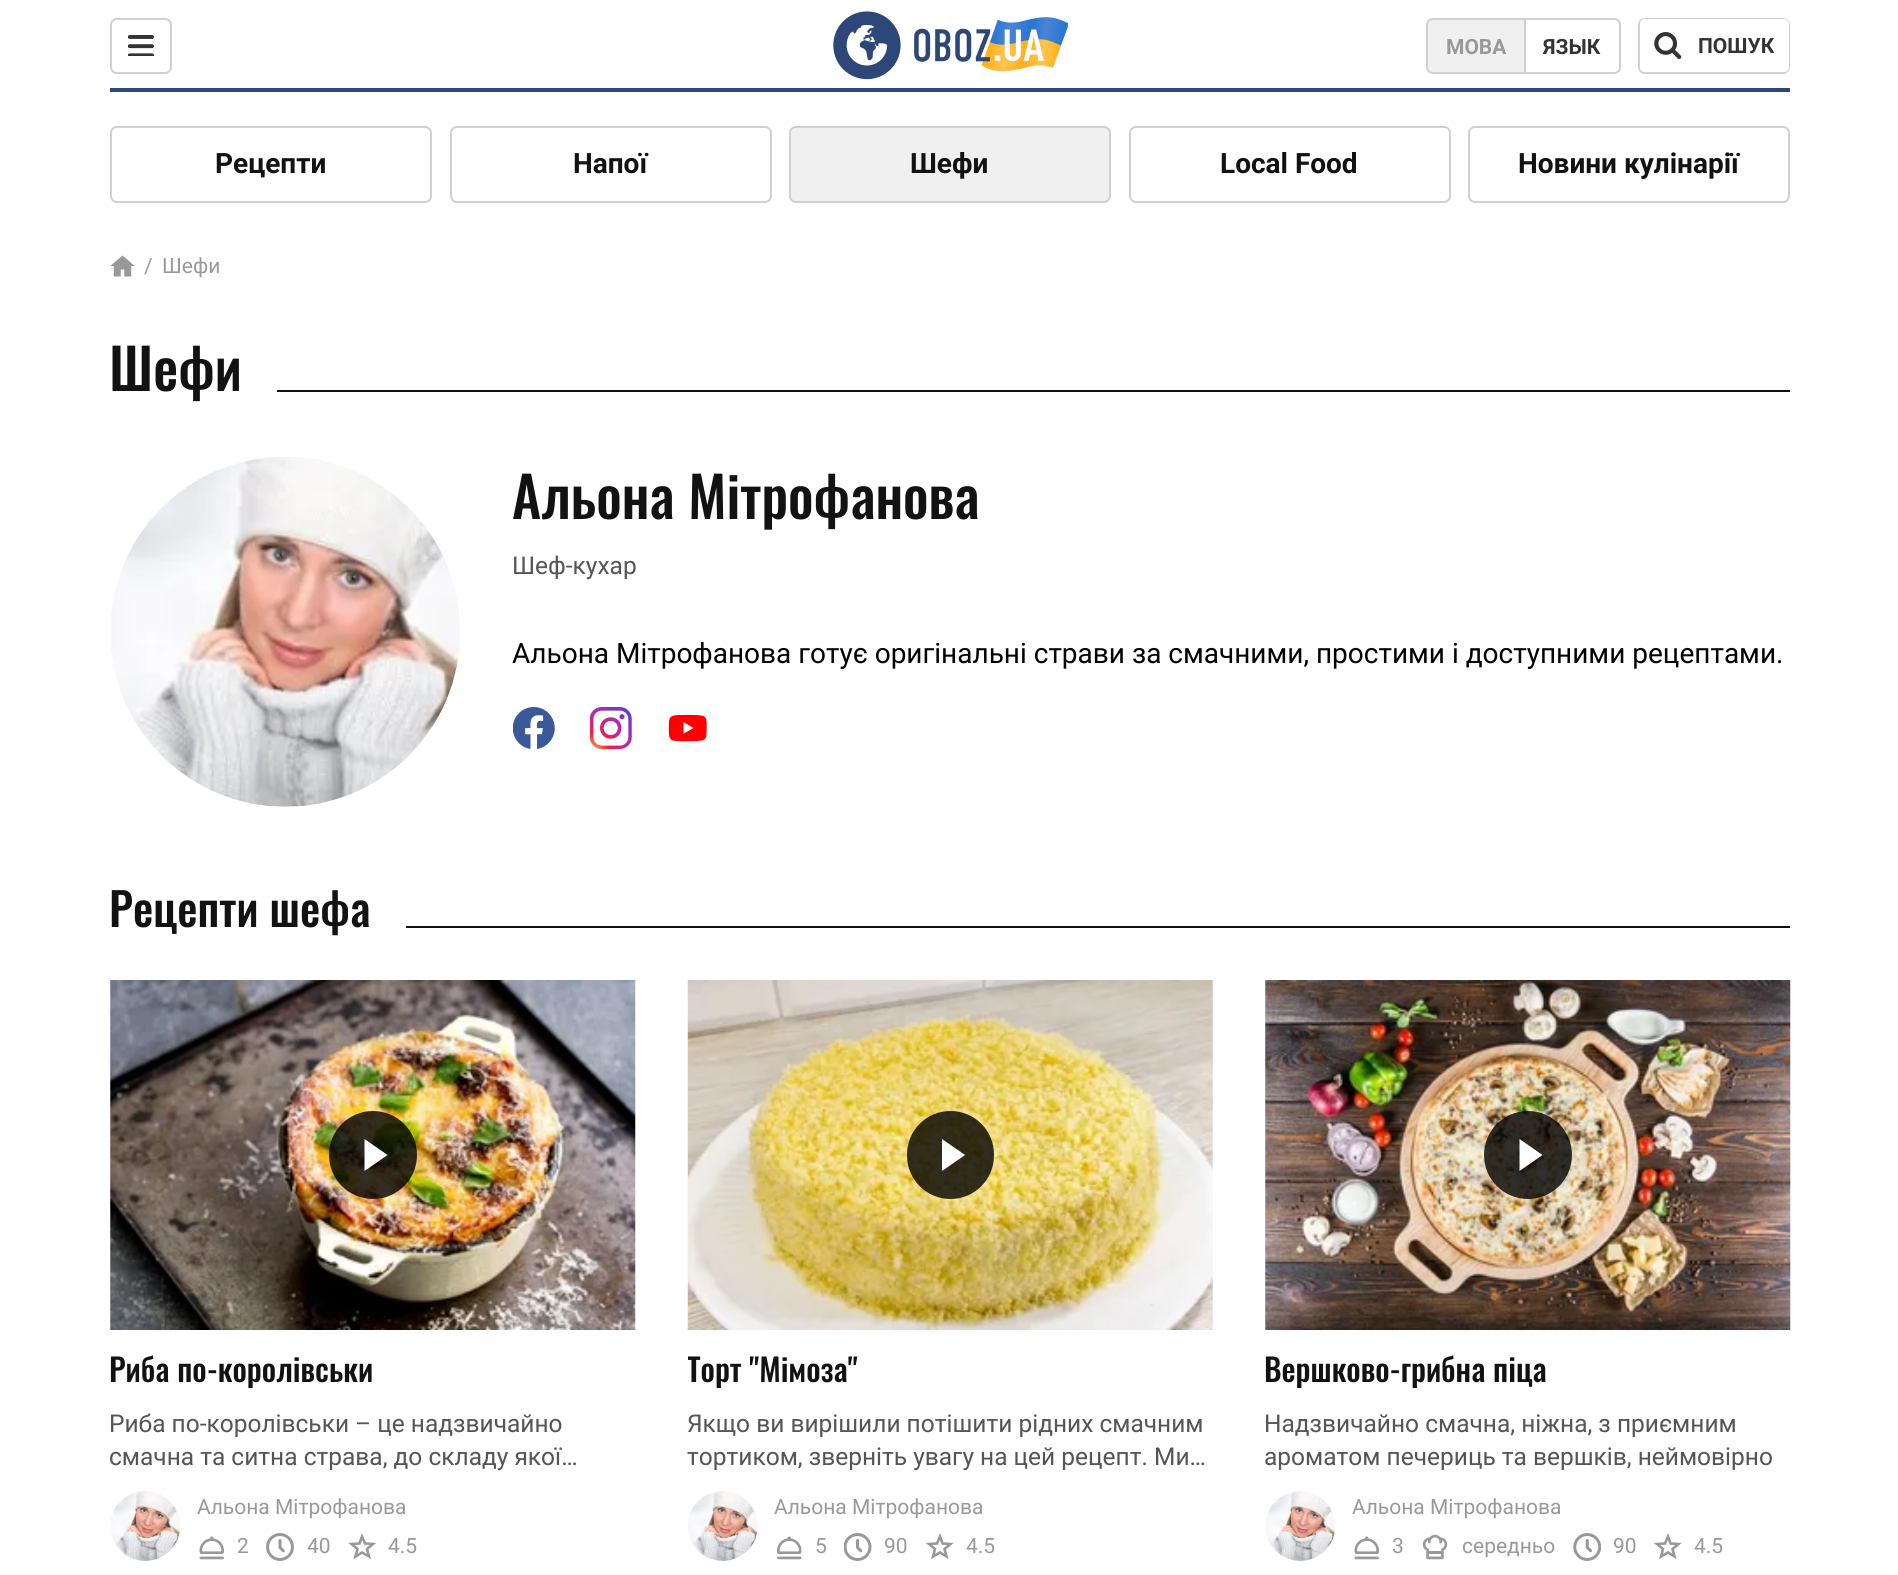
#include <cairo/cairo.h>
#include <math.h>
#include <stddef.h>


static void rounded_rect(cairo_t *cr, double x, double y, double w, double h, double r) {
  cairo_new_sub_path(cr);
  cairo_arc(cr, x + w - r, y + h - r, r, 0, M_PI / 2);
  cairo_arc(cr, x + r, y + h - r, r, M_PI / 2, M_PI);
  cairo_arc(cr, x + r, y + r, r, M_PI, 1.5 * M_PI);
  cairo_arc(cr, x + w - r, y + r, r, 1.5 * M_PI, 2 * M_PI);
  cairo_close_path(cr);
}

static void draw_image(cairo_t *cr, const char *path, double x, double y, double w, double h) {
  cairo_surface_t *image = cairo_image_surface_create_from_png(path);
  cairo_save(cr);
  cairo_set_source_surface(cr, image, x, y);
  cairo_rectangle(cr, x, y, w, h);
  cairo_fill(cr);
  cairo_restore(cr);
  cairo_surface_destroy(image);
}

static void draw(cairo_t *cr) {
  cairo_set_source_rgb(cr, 1, 1, 1);
  cairo_paint(cr);
  cairo_set_source_rgb(cr, 45 / 255.0, 72 / 255.0, 120 / 255.0);
  cairo_rectangle(cr, 110, 88, 1680, 4);
  cairo_fill(cr);
  rounded_rect(cr, 111, 19, 60, 54, 6);
  cairo_set_source_rgb(cr, 208 / 255.0, 208 / 255.0, 208 / 255.0);
  cairo_stroke(cr);
  draw_image(cr, "images/1.png", 128, 35, 26, 21);
  draw_image(cr, "images/2.png", 833, 11, 235, 69);
  cairo_set_source_rgb(cr, 240 / 255.0, 240 / 255.0, 240 / 255.0);
  cairo_new_path(cr);
  cairo_move_to(cr, 1433, 19);
  cairo_line_to(cr, 1525, 19);
  cairo_line_to(cr, 1525, 73);
  cairo_line_to(cr, 1433, 73);
  cairo_curve_to(cr, 1429.5, 73, 1427, 70.5, 1427, 67);
  cairo_line_to(cr, 1427, 25);
  cairo_curve_to(cr, 1427, 21.5, 1429.5, 19, 1433, 19);
  cairo_close_path(cr);
  cairo_fill_preserve(cr);
  cairo_set_source_rgb(cr, 208 / 255.0, 208 / 255.0, 208 / 255.0);
  cairo_stroke(cr);
  cairo_set_source_rgb(cr, 1, 1, 1);
  cairo_new_path(cr);
  cairo_move_to(cr, 1525, 19);
  cairo_line_to(cr, 1614, 19);
  cairo_curve_to(cr, 1617.5, 19, 1620, 21.5, 1620, 25);
  cairo_line_to(cr, 1620, 67);
  cairo_curve_to(cr, 1620, 70.5, 1617.5, 73, 1614, 73);
  cairo_line_to(cr, 1525, 73);
  cairo_close_path(cr);
  cairo_fill_preserve(cr);
  cairo_set_source_rgb(cr, 208 / 255.0, 208 / 255.0, 208 / 255.0);
  cairo_stroke(cr);
  rounded_rect(cr, 1639, 19, 150, 54, 6);
  cairo_stroke(cr);
  cairo_set_source_rgb(cr, 1, 1, 1);
  rounded_rect(cr, 1640, 19, 149, 53, 5);
  cairo_fill(cr);
  draw_image(cr, "images/3.png", 1654, 32, 28, 27);
  rounded_rect(cr, 111, 127, 320, 75, 6);
  cairo_set_source_rgb(cr, 208 / 255.0, 208 / 255.0, 208 / 255.0);
  cairo_stroke(cr);
  rounded_rect(cr, 451, 127, 320, 75, 6);
  cairo_stroke(cr);
  cairo_set_source_rgb(cr, 240 / 255.0, 240 / 255.0, 240 / 255.0);
  rounded_rect(cr, 790, 127, 320, 75, 6);
  cairo_fill_preserve(cr);
  cairo_set_source_rgb(cr, 208 / 255.0, 208 / 255.0, 208 / 255.0);
  cairo_stroke(cr);
  rounded_rect(cr, 1130, 127, 320, 75, 6);
  cairo_stroke(cr);
  rounded_rect(cr, 1469, 127, 320, 75, 6);
  cairo_stroke(cr);
  draw_image(cr, "images/4.png", 110, 255, 25, 22);
  cairo_set_source_rgb(cr, 18 / 255.0, 18 / 255.0, 18 / 255.0);
  cairo_rectangle(cr, 277, 390, 1513, 2);
  cairo_fill(cr);
  draw_image(cr, "images/5.png", 110, 457, 350, 350);
  draw_image(cr, "images/6.png", 513, 707, 42, 42);
  draw_image(cr, "images/7.png", 590, 707, 42, 42);
  draw_image(cr, "images/8.png", 668, 714, 39, 28);
  cairo_rectangle(cr, 406, 926, 1384, 2);
  cairo_fill(cr);
  draw_image(cr, "images/9.png", 110, 980, 526, 350);
  cairo_set_source_rgba(cr, 0, 0, 0, 0.8);
  cairo_arc(cr, 373, 1155, 44, 0, 2 * M_PI);
  cairo_fill(cr);
  cairo_set_source_rgb(cr, 1, 1, 1);
  cairo_new_path(cr);
  cairo_move_to(cr, 364.5, 1171);
  cairo_line_to(cr, 364.5, 1139);
  cairo_line_to(cr, 387.5, 1155);
  cairo_close_path(cr);
  cairo_fill(cr);
  draw_image(cr, "images/10.png", 110, 1491, 70, 70);
  draw_image(cr, "images/11.png", 199, 1536, 25, 24);
  draw_image(cr, "images/12.png", 266, 1533, 28, 28);
  cairo_new_path(cr);
  cairo_move_to(cr, 362, 1536.5);
  cairo_line_to(cr, 365, 1543.5);
  cairo_line_to(cr, 373, 1544);
  cairo_line_to(cr, 367, 1549);
  cairo_line_to(cr, 369, 1556.5);
  cairo_line_to(cr, 362, 1552.5);
  cairo_line_to(cr, 355.5, 1556.5);
  cairo_line_to(cr, 357.5, 1549);
  cairo_line_to(cr, 351.5, 1544);
  cairo_line_to(cr, 359.5, 1543.5);
  cairo_close_path(cr);
  cairo_set_source_rgb(cr, 153 / 255.0, 153 / 255.0, 153 / 255.0);
  cairo_set_line_width(cr, 2.6);
  cairo_stroke(cr);
  draw_image(cr, "images/13.png", 687, 980, 526, 350);
  cairo_set_source_rgba(cr, 0, 0, 0, 0.8);
  rounded_rect(cr, 907, 1111, 87, 88, 43.5);
  cairo_fill(cr);
  cairo_set_source_rgb(cr, 1, 1, 1);
  cairo_new_path(cr);
  cairo_move_to(cr, 942, 1171);
  cairo_line_to(cr, 942, 1139);
  cairo_line_to(cr, 965, 1155);
  cairo_close_path(cr);
  cairo_fill(cr);
  draw_image(cr, "images/14.png", 688, 1491, 70, 70);
  draw_image(cr, "images/15.png", 777, 1536, 25, 24);
  draw_image(cr, "images/16.png", 844, 1533, 28, 28);
  cairo_new_path(cr);
  cairo_move_to(cr, 940, 1536.5);
  cairo_line_to(cr, 942.5, 1543.5);
  cairo_line_to(cr, 950.5, 1544);
  cairo_line_to(cr, 944.5, 1549);
  cairo_line_to(cr, 946.5, 1556.5);
  cairo_line_to(cr, 940, 1552.5);
  cairo_line_to(cr, 933, 1556.5);
  cairo_line_to(cr, 935, 1549);
  cairo_line_to(cr, 929, 1544);
  cairo_line_to(cr, 937, 1543.5);
  cairo_close_path(cr);
  cairo_set_source_rgb(cr, 153 / 255.0, 153 / 255.0, 153 / 255.0);
  cairo_stroke(cr);
  draw_image(cr, "images/17.png", 1265, 980, 526, 350);
  cairo_set_source_rgba(cr, 0, 0, 0, 0.8);
  cairo_arc(cr, 1528, 1155, 44, 0, 2 * M_PI);
  cairo_fill(cr);
  cairo_set_source_rgb(cr, 1, 1, 1);
  cairo_new_path(cr);
  cairo_move_to(cr, 1519.5, 1171);
  cairo_line_to(cr, 1519.5, 1139);
  cairo_line_to(cr, 1542.5, 1155);
  cairo_close_path(cr);
  cairo_fill(cr);
  draw_image(cr, "images/18.png", 1265, 1491, 70, 70);
  draw_image(cr, "images/11.png", 1354, 1536, 25, 24);
  draw_image(cr, "images/19.png", 1422, 1534, 26, 26);
  draw_image(cr, "images/20.png", 1573, 1533, 28, 28);
  cairo_new_path(cr);
  cairo_move_to(cr, 1668, 1536.5);
  cairo_line_to(cr, 1670.5, 1543.5);
  cairo_line_to(cr, 1678.5, 1544);
  cairo_line_to(cr, 1672.5, 1549);
  cairo_line_to(cr, 1674.5, 1556.5);
  cairo_line_to(cr, 1668, 1552.5);
  cairo_line_to(cr, 1661, 1556.5);
  cairo_line_to(cr, 1663, 1549);
  cairo_line_to(cr, 1657, 1544);
  cairo_line_to(cr, 1665, 1543.5);
  cairo_close_path(cr);
  cairo_set_source_rgb(cr, 153 / 255.0, 153 / 255.0, 153 / 255.0);
  cairo_stroke(cr);
  cairo_select_font_face(cr, "Roboto", CAIRO_FONT_SLANT_NORMAL, CAIRO_FONT_WEIGHT_BOLD);
  cairo_set_font_size(cr, 21);
  cairo_move_to(cr, 1446, 54);
  cairo_show_text(cr, "МОВА");
  cairo_set_source_rgb(cr, 51 / 255.0, 51 / 255.0, 51 / 255.0);
  cairo_move_to(cr, 1543, 54);
  cairo_show_text(cr, "ЯЗЫК");
  cairo_move_to(cr, 1698, 53);
  cairo_show_text(cr, "ПОШУК");
  cairo_set_font_size(cr, 28);
  cairo_set_source_rgb(cr, 18 / 255.0, 18 / 255.0, 18 / 255.0);
  cairo_move_to(cr, 215, 173);
  cairo_show_text(cr, "Рецепти");
  cairo_move_to(cr, 573, 173);
  cairo_show_text(cr, "Напої");
  cairo_move_to(cr, 910, 173);
  cairo_show_text(cr, "Шефи");
  cairo_move_to(cr, 1220, 173);
  cairo_show_text(cr, "Local Food");
  cairo_move_to(cr, 1518, 173);
  cairo_show_text(cr, "Новини кулінарії");
  cairo_select_font_face(cr, "Roboto", CAIRO_FONT_SLANT_NORMAL, CAIRO_FONT_WEIGHT_NORMAL);
  cairo_set_font_size(cr, 21);
  cairo_set_source_rgb(cr, 153 / 255.0, 153 / 255.0, 153 / 255.0);
  cairo_move_to(cr, 144, 273);
  cairo_show_text(cr, "/");
  cairo_move_to(cr, 162, 273);
  cairo_show_text(cr, "Шефи");
  cairo_select_font_face(cr, "Oswald Medium", CAIRO_FONT_SLANT_NORMAL, CAIRO_FONT_WEIGHT_NORMAL);
  cairo_set_font_size(cr, 56);
  cairo_set_source_rgb(cr, 18 / 255.0, 18 / 255.0, 18 / 255.0);
  cairo_move_to(cr, 109, 391);
  cairo_show_text(cr, "Шефи");
  cairo_move_to(cr, 512, 519);
  cairo_show_text(cr, "Альона Мітрофанова");
  cairo_select_font_face(cr, "Roboto", CAIRO_FONT_SLANT_NORMAL, CAIRO_FONT_WEIGHT_NORMAL);
  cairo_set_font_size(cr, 24.5);
  cairo_set_source_rgb(cr, 85 / 255.0, 85 / 255.0, 85 / 255.0);
  cairo_move_to(cr, 512, 574);
  cairo_show_text(cr, "Шеф-кухар");
  cairo_set_font_size(cr, 28);
  cairo_set_source_rgb(cr, 0, 0, 0);
  cairo_move_to(cr, 512, 663);
  cairo_show_text(cr, "Альона Мітрофанова готує оригінальні страви за смачними, простими і доступними рецептами.");
  cairo_select_font_face(cr, "Oswald Medium", CAIRO_FONT_SLANT_NORMAL, CAIRO_FONT_WEIGHT_NORMAL);
  cairo_set_font_size(cr, 45.5);
  cairo_set_source_rgb(cr, 18 / 255.0, 18 / 255.0, 18 / 255.0);
  cairo_move_to(cr, 109, 927);
  cairo_show_text(cr, "Рецепти шефа");
  cairo_set_font_size(cr, 31.5);
  cairo_move_to(cr, 109, 1382);
  cairo_show_text(cr, "Риба по-королівськи");
  cairo_select_font_face(cr, "Roboto", CAIRO_FONT_SLANT_NORMAL, CAIRO_FONT_WEIGHT_NORMAL);
  cairo_set_font_size(cr, 24.5);
  cairo_set_source_rgb(cr, 85 / 255.0, 85 / 255.0, 85 / 255.0);
  cairo_move_to(cr, 109, 1432);
  cairo_show_text(cr, "Риба по-королівськи – це надзвичайно");
  cairo_move_to(cr, 109, 1465);
  cairo_show_text(cr, "смачна та ситна страва, до складу якої…");
  cairo_set_font_size(cr, 21);
  cairo_set_source_rgb(cr, 153 / 255.0, 153 / 255.0, 153 / 255.0);
  cairo_move_to(cr, 197, 1514);
  cairo_show_text(cr, "Альона Мітрофанова");
  cairo_move_to(cr, 237, 1553);
  cairo_show_text(cr, "2");
  cairo_move_to(cr, 307, 1553);
  cairo_show_text(cr, "40");
  cairo_move_to(cr, 388, 1553);
  cairo_show_text(cr, "4.5");
  cairo_save(cr);
  cairo_rectangle(cr, 688, 1348, 525, 42);
  cairo_clip(cr);
  cairo_select_font_face(cr, "Oswald Medium", CAIRO_FONT_SLANT_NORMAL, CAIRO_FONT_WEIGHT_NORMAL);
  cairo_set_font_size(cr, 31.5);
  cairo_set_source_rgb(cr, 18 / 255.0, 18 / 255.0, 18 / 255.0);
  cairo_move_to(cr, 687, 1382);
  cairo_show_text(cr, "Торт \"Мімоза\"");
  cairo_restore(cr);
  cairo_set_font_size(cr, 24.5);
  cairo_set_source_rgb(cr, 85 / 255.0, 85 / 255.0, 85 / 255.0);
  cairo_move_to(cr, 687, 1432);
  cairo_show_text(cr, "Якщо ви вирішили потішити рідних смачним");
  cairo_move_to(cr, 687, 1465);
  cairo_show_text(cr, "тортиком, зверніть увагу на цей рецепт. Ми…");
  cairo_set_font_size(cr, 21);
  cairo_set_source_rgb(cr, 153 / 255.0, 153 / 255.0, 153 / 255.0);
  cairo_move_to(cr, 774, 1514);
  cairo_show_text(cr, "Альона Мітрофанова");
  cairo_move_to(cr, 815, 1553);
  cairo_show_text(cr, "5");
  cairo_move_to(cr, 884, 1553);
  cairo_show_text(cr, "90");
  cairo_move_to(cr, 966, 1553);
  cairo_show_text(cr, "4.5");
  cairo_select_font_face(cr, "Oswald Medium", CAIRO_FONT_SLANT_NORMAL, CAIRO_FONT_WEIGHT_NORMAL);
  cairo_set_font_size(cr, 31.5);
  cairo_set_source_rgb(cr, 18 / 255.0, 18 / 255.0, 18 / 255.0);
  cairo_move_to(cr, 1264, 1382);
  cairo_show_text(cr, "Вершково-грибна піца");
  cairo_select_font_face(cr, "Roboto", CAIRO_FONT_SLANT_NORMAL, CAIRO_FONT_WEIGHT_NORMAL);
  cairo_set_font_size(cr, 24.5);
  cairo_set_source_rgb(cr, 85 / 255.0, 85 / 255.0, 85 / 255.0);
  cairo_move_to(cr, 1264, 1432);
  cairo_show_text(cr, "Надзвичайно смачна, ніжна, з приємним");
  cairo_move_to(cr, 1264, 1465);
  cairo_show_text(cr, "ароматом печериць та вершків, неймовірно");
  cairo_set_font_size(cr, 21);
  cairo_set_source_rgb(cr, 153 / 255.0, 153 / 255.0, 153 / 255.0);
  cairo_move_to(cr, 1352, 1514);
  cairo_show_text(cr, "Альона Мітрофанова");
  cairo_move_to(cr, 1392, 1553);
  cairo_show_text(cr, "3");
  cairo_move_to(cr, 1462, 1553);
  cairo_show_text(cr, "середньо");
  cairo_move_to(cr, 1613, 1553);
  cairo_show_text(cr, "90");
  cairo_move_to(cr, 1694, 1553);
  cairo_show_text(cr, "4.5");
}

int main(void) {
  cairo_surface_t *surface = cairo_image_surface_create(CAIRO_FORMAT_RGB24, 1898, 1575);
  cairo_t *cr = cairo_create(surface);
  cairo_font_options_t *options = cairo_font_options_create();
  cairo_font_options_set_hint_metrics(options, CAIRO_HINT_METRICS_OFF);
  cairo_font_options_set_hint_style(options, CAIRO_HINT_STYLE_NONE);
  cairo_set_font_options(cr, options);
  cairo_set_miter_limit(cr, 4);
  draw(cr);
  cairo_surface_write_to_png(surface, "out.png");
  cairo_font_options_destroy(options);
  cairo_destroy(cr);
  cairo_surface_destroy(surface);
  return 0;
}
